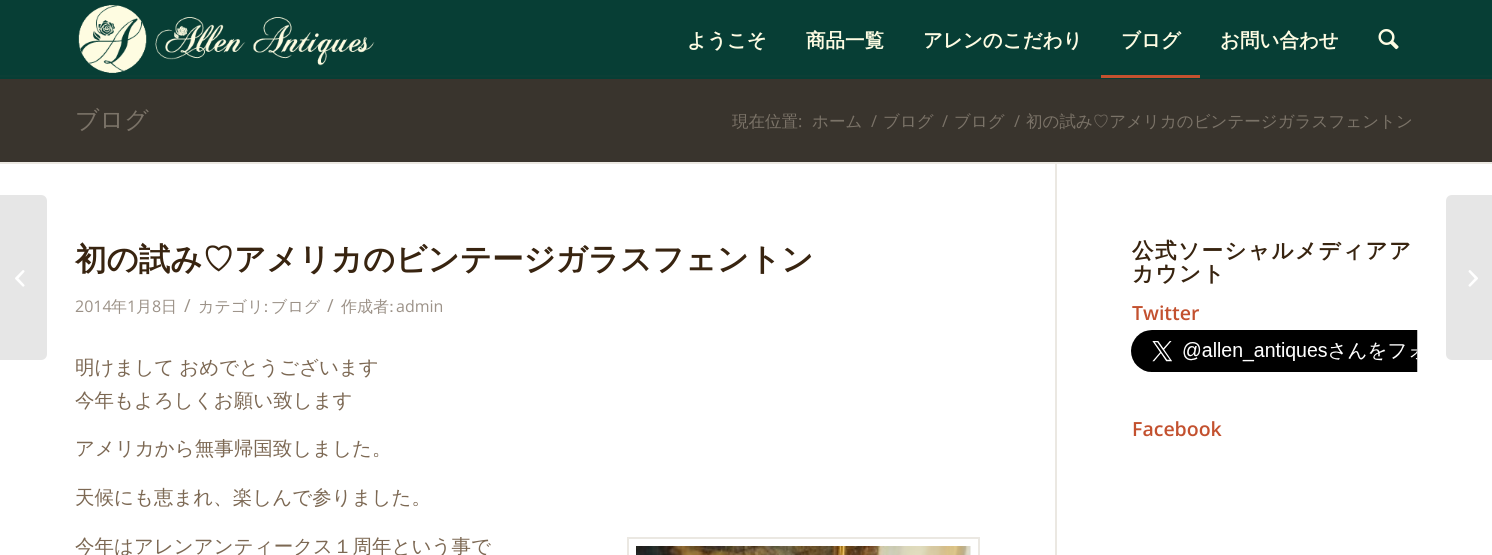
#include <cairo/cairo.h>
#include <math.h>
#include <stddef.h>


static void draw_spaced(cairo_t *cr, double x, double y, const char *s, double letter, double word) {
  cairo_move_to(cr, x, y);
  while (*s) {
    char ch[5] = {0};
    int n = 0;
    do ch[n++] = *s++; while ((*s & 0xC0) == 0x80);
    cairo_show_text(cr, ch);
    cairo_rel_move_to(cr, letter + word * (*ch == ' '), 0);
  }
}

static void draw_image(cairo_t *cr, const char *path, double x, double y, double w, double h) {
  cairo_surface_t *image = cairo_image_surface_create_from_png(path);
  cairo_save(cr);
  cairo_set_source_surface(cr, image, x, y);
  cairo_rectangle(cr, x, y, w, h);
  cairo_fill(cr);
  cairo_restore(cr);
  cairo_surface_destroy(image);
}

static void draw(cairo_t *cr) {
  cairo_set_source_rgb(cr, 7 / 255.0, 62 / 255.0, 53 / 255.0);
  cairo_paint(cr);
  draw_image(cr, "images/1.png", 78, 5, 297, 68);
  cairo_set_source_rgb(cr, 11 / 255.0, 63 / 255.0, 54 / 255.0);
  cairo_rectangle(cr, 0, 75, 1492, 2);
  cairo_fill(cr);
  cairo_set_source_rgb(cr, 195 / 255.0, 81 / 255.0, 47 / 255.0);
  cairo_rectangle(cr, 1101, 75, 99, 3);
  cairo_fill(cr);
  draw_image(cr, "images/2.png", 1378, 29, 21, 21);
  cairo_set_source_rgb(cr, 1, 1, 1);
  cairo_rectangle(cr, 0, 164, 1492, 391);
  cairo_fill(cr);
  cairo_set_source_rgb(cr, 230 / 255.0, 230 / 255.0, 230 / 255.0);
  cairo_new_path(cr);
  cairo_move_to(cr, 0, 195);
  cairo_line_to(cr, 41, 195);
  cairo_curve_to(cr, 44.5, 195, 47, 197.5, 47, 201);
  cairo_line_to(cr, 47, 354);
  cairo_curve_to(cr, 47, 357.5, 44.5, 360, 41, 360);
  cairo_line_to(cr, 0, 360);
  cairo_close_path(cr);
  cairo_fill(cr);
  draw_image(cr, "images/3.png", 15, 270, 10, 17);
  cairo_set_source_rgb(cr, 57 / 255.0, 52 / 255.0, 45 / 255.0);
  cairo_rectangle(cr, 0, 79, 1492, 83);
  cairo_fill(cr);
  cairo_set_source_rgb(cr, 235 / 255.0, 232 / 255.0, 226 / 255.0);
  cairo_rectangle(cr, 0, 162, 1492, 2);
  cairo_fill(cr);
  cairo_rectangle(cr, 1055, 164, 2, 391);
  cairo_fill(cr);
  cairo_rectangle(cr, 628, 538, 351, 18);
  cairo_stroke(cr);
  draw_image(cr, "images/4.png", 636, 546, 335, 9);
  draw_image(cr, "images/5.png", 1131, 330, 287, 42);
  cairo_set_source_rgb(cr, 230 / 255.0, 230 / 255.0, 230 / 255.0);
  cairo_new_path(cr);
  cairo_move_to(cr, 1452, 195);
  cairo_line_to(cr, 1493, 195);
  cairo_line_to(cr, 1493, 360);
  cairo_line_to(cr, 1452, 360);
  cairo_curve_to(cr, 1448.5, 360, 1446, 357.5, 1446, 354);
  cairo_line_to(cr, 1446, 201);
  cairo_curve_to(cr, 1446, 197.5, 1448.5, 195, 1452, 195);
  cairo_close_path(cr);
  cairo_fill(cr);
  draw_image(cr, "images/6.png", 1468, 270, 10, 17);
  cairo_select_font_face(cr, "WenQuanYi Zen Hei", CAIRO_FONT_SLANT_NORMAL, CAIRO_FONT_WEIGHT_BOLD);
  cairo_set_font_size(cr, 19.5);
  cairo_set_source_rgb(cr, 254 / 255.0, 252 / 255.0, 227 / 255.0);
  cairo_move_to(cr, 687, 47);
  cairo_show_text(cr, "ようこそ");
  cairo_move_to(cr, 806, 47);
  cairo_show_text(cr, "商品一覧");
  cairo_move_to(cr, 923, 47);
  cairo_show_text(cr, "アレンのこだわり");
  cairo_move_to(cr, 1121, 47);
  cairo_show_text(cr, "ブログ");
  cairo_move_to(cr, 1220, 47);
  cairo_show_text(cr, "お問い合わせ");
  cairo_select_font_face(cr, "WenQuanYi Zen Hei Medium", CAIRO_FONT_SLANT_NORMAL, CAIRO_FONT_WEIGHT_NORMAL);
  cairo_set_font_size(cr, 24);
  cairo_set_source_rgb(cr, 123 / 255.0, 115 / 255.0, 104 / 255.0);
  cairo_move_to(cr, 75, 128);
  cairo_show_text(cr, "ブログ");
  cairo_set_font_size(cr, 16.5);
  cairo_move_to(cr, 732, 127);
  cairo_show_text(cr, "現在位置");
  cairo_select_font_face(cr, "Open Sans", CAIRO_FONT_SLANT_NORMAL, CAIRO_FONT_WEIGHT_NORMAL);
  cairo_move_to(cr, 798, 127);
  cairo_show_text(cr, ":");
  cairo_select_font_face(cr, "WenQuanYi Zen Hei Medium", CAIRO_FONT_SLANT_NORMAL, CAIRO_FONT_WEIGHT_NORMAL);
  cairo_move_to(cr, 812, 127);
  cairo_show_text(cr, "ホーム");
  cairo_select_font_face(cr, "Open Sans", CAIRO_FONT_SLANT_NORMAL, CAIRO_FONT_WEIGHT_NORMAL);
  cairo_move_to(cr, 871, 127);
  cairo_show_text(cr, "/");
  cairo_select_font_face(cr, "WenQuanYi Zen Hei Medium", CAIRO_FONT_SLANT_NORMAL, CAIRO_FONT_WEIGHT_NORMAL);
  cairo_move_to(cr, 883, 127);
  cairo_show_text(cr, "ブログ");
  cairo_select_font_face(cr, "Open Sans", CAIRO_FONT_SLANT_NORMAL, CAIRO_FONT_WEIGHT_NORMAL);
  cairo_move_to(cr, 942, 127);
  cairo_show_text(cr, "/");
  cairo_select_font_face(cr, "WenQuanYi Zen Hei Medium", CAIRO_FONT_SLANT_NORMAL, CAIRO_FONT_WEIGHT_NORMAL);
  cairo_move_to(cr, 954, 127);
  cairo_show_text(cr, "ブログ");
  cairo_select_font_face(cr, "Open Sans", CAIRO_FONT_SLANT_NORMAL, CAIRO_FONT_WEIGHT_NORMAL);
  cairo_move_to(cr, 1014, 127);
  cairo_show_text(cr, "/");
  cairo_select_font_face(cr, "WenQuanYi Zen Hei Medium", CAIRO_FONT_SLANT_NORMAL, CAIRO_FONT_WEIGHT_NORMAL);
  cairo_move_to(cr, 1026, 127);
  cairo_show_text(cr, "初の試み♡アメリカのビンテージガラスフェントン");
  cairo_select_font_face(cr, "WenQuanYi Zen Hei", CAIRO_FONT_SLANT_NORMAL, CAIRO_FONT_WEIGHT_BOLD);
  cairo_set_font_size(cr, 31.5);
  cairo_set_source_rgb(cr, 56 / 255.0, 36 / 255.0, 16 / 255.0);
  cairo_move_to(cr, 75, 270);
  cairo_show_text(cr, "初の試み♡アメリカのビンテージガラスフェントン");
  cairo_select_font_face(cr, "Open Sans", CAIRO_FONT_SLANT_NORMAL, CAIRO_FONT_WEIGHT_NORMAL);
  cairo_set_font_size(cr, 16);
  cairo_set_source_rgb(cr, 156 / 255.0, 146 / 255.0, 136 / 255.0);
  cairo_move_to(cr, 75, 312);
  cairo_show_text(cr, "2014");
  cairo_select_font_face(cr, "WenQuanYi Zen Hei Medium", CAIRO_FONT_SLANT_NORMAL, CAIRO_FONT_WEIGHT_NORMAL);
  cairo_move_to(cr, 111, 312);
  cairo_show_text(cr, "年");
  cairo_select_font_face(cr, "Open Sans", CAIRO_FONT_SLANT_NORMAL, CAIRO_FONT_WEIGHT_NORMAL);
  cairo_move_to(cr, 127, 312);
  cairo_show_text(cr, "1");
  cairo_select_font_face(cr, "WenQuanYi Zen Hei Medium", CAIRO_FONT_SLANT_NORMAL, CAIRO_FONT_WEIGHT_NORMAL);
  cairo_move_to(cr, 136, 312);
  cairo_show_text(cr, "月");
  cairo_select_font_face(cr, "Open Sans", CAIRO_FONT_SLANT_NORMAL, CAIRO_FONT_WEIGHT_NORMAL);
  cairo_move_to(cr, 152, 312);
  cairo_show_text(cr, "8");
  cairo_select_font_face(cr, "WenQuanYi Zen Hei Medium", CAIRO_FONT_SLANT_NORMAL, CAIRO_FONT_WEIGHT_NORMAL);
  cairo_move_to(cr, 161, 312);
  cairo_show_text(cr, "日");
  cairo_select_font_face(cr, "Open Sans", CAIRO_FONT_SLANT_NORMAL, CAIRO_FONT_WEIGHT_NORMAL);
  cairo_set_font_size(cr, 18);
  cairo_move_to(cr, 184, 312);
  cairo_show_text(cr, "/");
  cairo_select_font_face(cr, "WenQuanYi Zen Hei Medium", CAIRO_FONT_SLANT_NORMAL, CAIRO_FONT_WEIGHT_NORMAL);
  cairo_set_font_size(cr, 16);
  cairo_move_to(cr, 198, 312);
  cairo_show_text(cr, "カテゴリ:");
  cairo_move_to(cr, 271, 312);
  cairo_show_text(cr, "ブログ");
  cairo_select_font_face(cr, "Open Sans", CAIRO_FONT_SLANT_NORMAL, CAIRO_FONT_WEIGHT_NORMAL);
  cairo_set_font_size(cr, 18);
  cairo_move_to(cr, 327, 312);
  cairo_show_text(cr, "/");
  cairo_select_font_face(cr, "WenQuanYi Zen Hei Medium", CAIRO_FONT_SLANT_NORMAL, CAIRO_FONT_WEIGHT_NORMAL);
  cairo_set_font_size(cr, 16);
  cairo_move_to(cr, 341, 312);
  cairo_show_text(cr, "作成者:");
  cairo_select_font_face(cr, "Open Sans", CAIRO_FONT_SLANT_NORMAL, CAIRO_FONT_WEIGHT_NORMAL);
  cairo_move_to(cr, 396, 312);
  cairo_show_text(cr, "admin");
  cairo_select_font_face(cr, "WenQuanYi Zen Hei Medium", CAIRO_FONT_SLANT_NORMAL, CAIRO_FONT_WEIGHT_NORMAL);
  cairo_set_font_size(cr, 19.5);
  cairo_set_source_rgb(cr, 124 / 255.0, 104 / 255.0, 83 / 255.0);
  draw_spaced(cr, 75, 374, "明けまして おめでとうございます", 0, -1);
  cairo_move_to(cr, 75, 407);
  cairo_show_text(cr, "今年もよろしくお願い致します");
  cairo_move_to(cr, 75, 455);
  cairo_show_text(cr, "アメリカから無事帰国致しました。");
  cairo_move_to(cr, 75, 504);
  cairo_show_text(cr, "天候にも恵まれ、楽しんで参りました。");
  cairo_move_to(cr, 75, 553);
  cairo_show_text(cr, "今年はアレンアンティークス１周年という事で");
  cairo_select_font_face(cr, "WenQuanYi Zen Hei", CAIRO_FONT_SLANT_NORMAL, CAIRO_FONT_WEIGHT_BOLD);
  cairo_set_font_size(cr, 21.5);
  cairo_set_source_rgb(cr, 56 / 255.0, 36 / 255.0, 16 / 255.0);
  draw_spaced(cr, 1132, 258, "公式ソーシャルメディアア", 1.5, 0);
  draw_spaced(cr, 1132, 281, "カウント", 1.5, 0);
  cairo_select_font_face(cr, "Open Sans SemiBold", CAIRO_FONT_SLANT_NORMAL, CAIRO_FONT_WEIGHT_NORMAL);
  cairo_set_font_size(cr, 19.5);
  cairo_set_source_rgb(cr, 195 / 255.0, 81 / 255.0, 47 / 255.0);
  cairo_move_to(cr, 1132, 320);
  cairo_show_text(cr, "Twitter");
  cairo_move_to(cr, 1132, 436);
  cairo_show_text(cr, "Facebook");
}

int main(void) {
  cairo_surface_t *surface = cairo_image_surface_create(CAIRO_FORMAT_RGB24, 1492, 555);
  cairo_t *cr = cairo_create(surface);
  cairo_font_options_t *options = cairo_font_options_create();
  cairo_font_options_set_hint_metrics(options, CAIRO_HINT_METRICS_OFF);
  cairo_font_options_set_hint_style(options, CAIRO_HINT_STYLE_NONE);
  cairo_set_font_options(cr, options);
  cairo_set_miter_limit(cr, 4);
  draw(cr);
  cairo_surface_write_to_png(surface, "out.png");
  cairo_font_options_destroy(options);
  cairo_destroy(cr);
  cairo_surface_destroy(surface);
  return 0;
}
